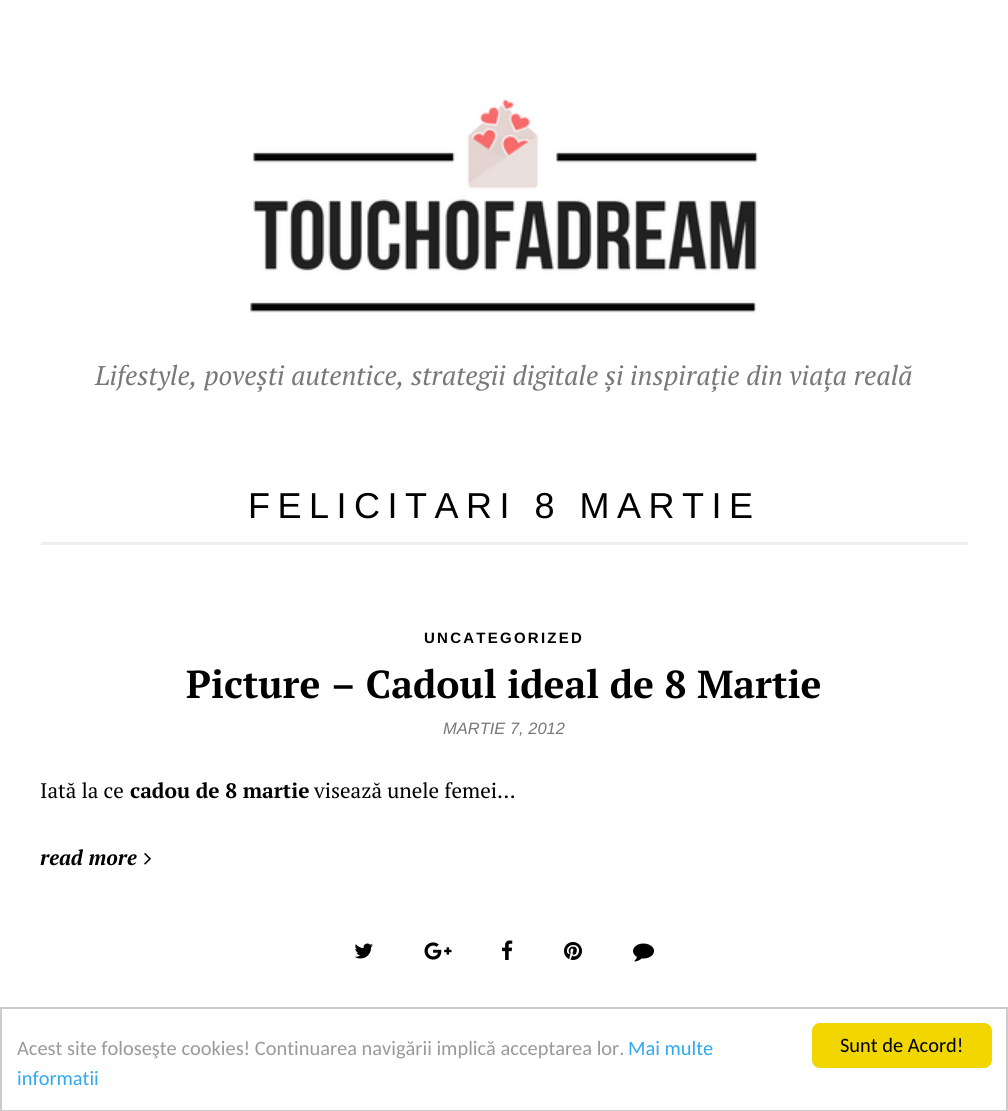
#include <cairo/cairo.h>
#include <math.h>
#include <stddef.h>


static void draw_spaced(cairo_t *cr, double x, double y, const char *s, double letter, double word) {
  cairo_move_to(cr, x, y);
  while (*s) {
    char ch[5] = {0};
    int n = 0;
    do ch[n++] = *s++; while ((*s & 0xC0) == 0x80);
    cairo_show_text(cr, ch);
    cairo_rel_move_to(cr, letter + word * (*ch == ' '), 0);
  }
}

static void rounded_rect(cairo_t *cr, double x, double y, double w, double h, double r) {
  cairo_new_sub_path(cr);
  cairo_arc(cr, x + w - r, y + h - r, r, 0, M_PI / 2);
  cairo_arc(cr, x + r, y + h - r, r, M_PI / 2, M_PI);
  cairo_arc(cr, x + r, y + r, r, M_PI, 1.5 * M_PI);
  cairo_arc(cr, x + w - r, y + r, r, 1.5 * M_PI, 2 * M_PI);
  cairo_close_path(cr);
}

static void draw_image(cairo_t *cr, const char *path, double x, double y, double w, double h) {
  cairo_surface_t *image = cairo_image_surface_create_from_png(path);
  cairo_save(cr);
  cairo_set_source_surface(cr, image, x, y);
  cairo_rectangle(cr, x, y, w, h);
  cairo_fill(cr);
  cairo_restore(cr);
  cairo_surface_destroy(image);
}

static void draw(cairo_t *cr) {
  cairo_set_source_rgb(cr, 1, 1, 1);
  cairo_paint(cr);
  draw_image(cr, "images/1.png", 250, 99, 508, 214);
  cairo_set_source_rgb(cr, 238 / 255.0, 238 / 255.0, 238 / 255.0);
  cairo_rectangle(cr, 41, 542, 927, 3);
  cairo_fill(cr);
  draw_image(cr, "images/2.png", 144, 853, 7, 12);
  draw_image(cr, "images/3.png", 354, 943, 19, 16);
  draw_image(cr, "images/4.png", 424, 942, 28, 18);
  draw_image(cr, "images/5.png", 502, 940, 11, 20);
  draw_image(cr, "images/6.png", 564, 942, 18, 18);
  draw_image(cr, "images/7.png", 633, 943, 21, 19);
  cairo_rectangle(cr, 1, 1008, 1006, 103);
  cairo_set_source_rgb(cr, 204 / 255.0, 204 / 255.0, 204 / 255.0);
  cairo_stroke(cr);
  cairo_set_source_rgb(cr, 241 / 255.0, 214 / 255.0, 0);
  rounded_rect(cr, 812, 1023, 180, 45, 8);
  cairo_fill(cr);
  cairo_select_font_face(cr, "PT Serif", CAIRO_FONT_SLANT_ITALIC, CAIRO_FONT_WEIGHT_NORMAL);
  cairo_set_font_size(cr, 27);
  cairo_set_source_rgb(cr, 120 / 255.0, 120 / 255.0, 120 / 255.0);
  cairo_move_to(cr, 95, 385);
  cairo_show_text(cr, "Lifestyle, povești autentice, strategii digitale și inspirație din viața reală");
  cairo_select_font_face(cr, "Liberation Sans", CAIRO_FONT_SLANT_NORMAL, CAIRO_FONT_WEIGHT_NORMAL);
  cairo_set_font_size(cr, 36);
  cairo_set_source_rgb(cr, 0, 0, 0);
  draw_spaced(cr, 248, 518, "FELICITARI 8 MARTIE", 7.5, 0);
  cairo_select_font_face(cr, "Liberation Sans", CAIRO_FONT_SLANT_NORMAL, CAIRO_FONT_WEIGHT_BOLD);
  cairo_set_font_size(cr, 15);
  draw_spaced(cr, 424, 643, "UNCATEGORIZED", 2.25, 0);
  cairo_select_font_face(cr, "PT Serif", CAIRO_FONT_SLANT_NORMAL, CAIRO_FONT_WEIGHT_BOLD);
  cairo_set_font_size(cr, 39);
  cairo_move_to(cr, 186, 698);
  cairo_show_text(cr, "Picture – Cadoul ideal de 8 Martie");
  cairo_select_font_face(cr, "Liberation Sans", CAIRO_FONT_SLANT_ITALIC, CAIRO_FONT_WEIGHT_NORMAL);
  cairo_set_font_size(cr, 16.5);
  cairo_set_source_rgb(cr, 120 / 255.0, 120 / 255.0, 120 / 255.0);
  cairo_move_to(cr, 443, 734);
  cairo_show_text(cr, "MARTIE 7, 2012");
  cairo_select_font_face(cr, "PT Serif", CAIRO_FONT_SLANT_NORMAL, CAIRO_FONT_WEIGHT_NORMAL);
  cairo_set_font_size(cr, 21);
  cairo_set_source_rgb(cr, 0, 0, 0);
  cairo_move_to(cr, 40, 798);
  cairo_show_text(cr, "Iată la ce");
  cairo_select_font_face(cr, "PT Serif", CAIRO_FONT_SLANT_NORMAL, CAIRO_FONT_WEIGHT_BOLD);
  cairo_move_to(cr, 130, 798);
  cairo_show_text(cr, "cadou de 8 martie");
  cairo_select_font_face(cr, "PT Serif", CAIRO_FONT_SLANT_NORMAL, CAIRO_FONT_WEIGHT_NORMAL);
  cairo_move_to(cr, 314, 798);
  cairo_show_text(cr, "visează unele femei…");
  cairo_select_font_face(cr, "PT Serif", CAIRO_FONT_SLANT_ITALIC, CAIRO_FONT_WEIGHT_BOLD);
  cairo_move_to(cr, 40, 865);
  cairo_show_text(cr, "read more");
  cairo_select_font_face(cr, "Carlito", CAIRO_FONT_SLANT_NORMAL, CAIRO_FONT_WEIGHT_NORMAL);
  cairo_set_font_size(cr, 20.4);
  cairo_set_source_rgb(cr, 153 / 255.0, 153 / 255.0, 153 / 255.0);
  cairo_move_to(cr, 17, 1055);
  cairo_show_text(cr, "Acest site foloseşte cookies! Continuarea navigării implică acceptarea lor.");
  cairo_set_source_rgb(cr, 49 / 255.0, 168 / 255.0, 240 / 255.0);
  cairo_move_to(cr, 628, 1055);
  cairo_show_text(cr, "Mai multe");
  cairo_move_to(cr, 17, 1085);
  cairo_show_text(cr, "informatii");
  cairo_set_source_rgb(cr, 0, 0, 0);
  cairo_move_to(cr, 840, 1052);
  cairo_show_text(cr, "Sunt de Acord!");
}

int main(void) {
  cairo_surface_t *surface = cairo_image_surface_create(CAIRO_FORMAT_RGB24, 1008, 1111);
  cairo_t *cr = cairo_create(surface);
  cairo_font_options_t *options = cairo_font_options_create();
  cairo_font_options_set_hint_metrics(options, CAIRO_HINT_METRICS_OFF);
  cairo_font_options_set_hint_style(options, CAIRO_HINT_STYLE_NONE);
  cairo_set_font_options(cr, options);
  cairo_set_miter_limit(cr, 4);
  draw(cr);
  cairo_surface_write_to_png(surface, "out.png");
  cairo_font_options_destroy(options);
  cairo_destroy(cr);
  cairo_surface_destroy(surface);
  return 0;
}
